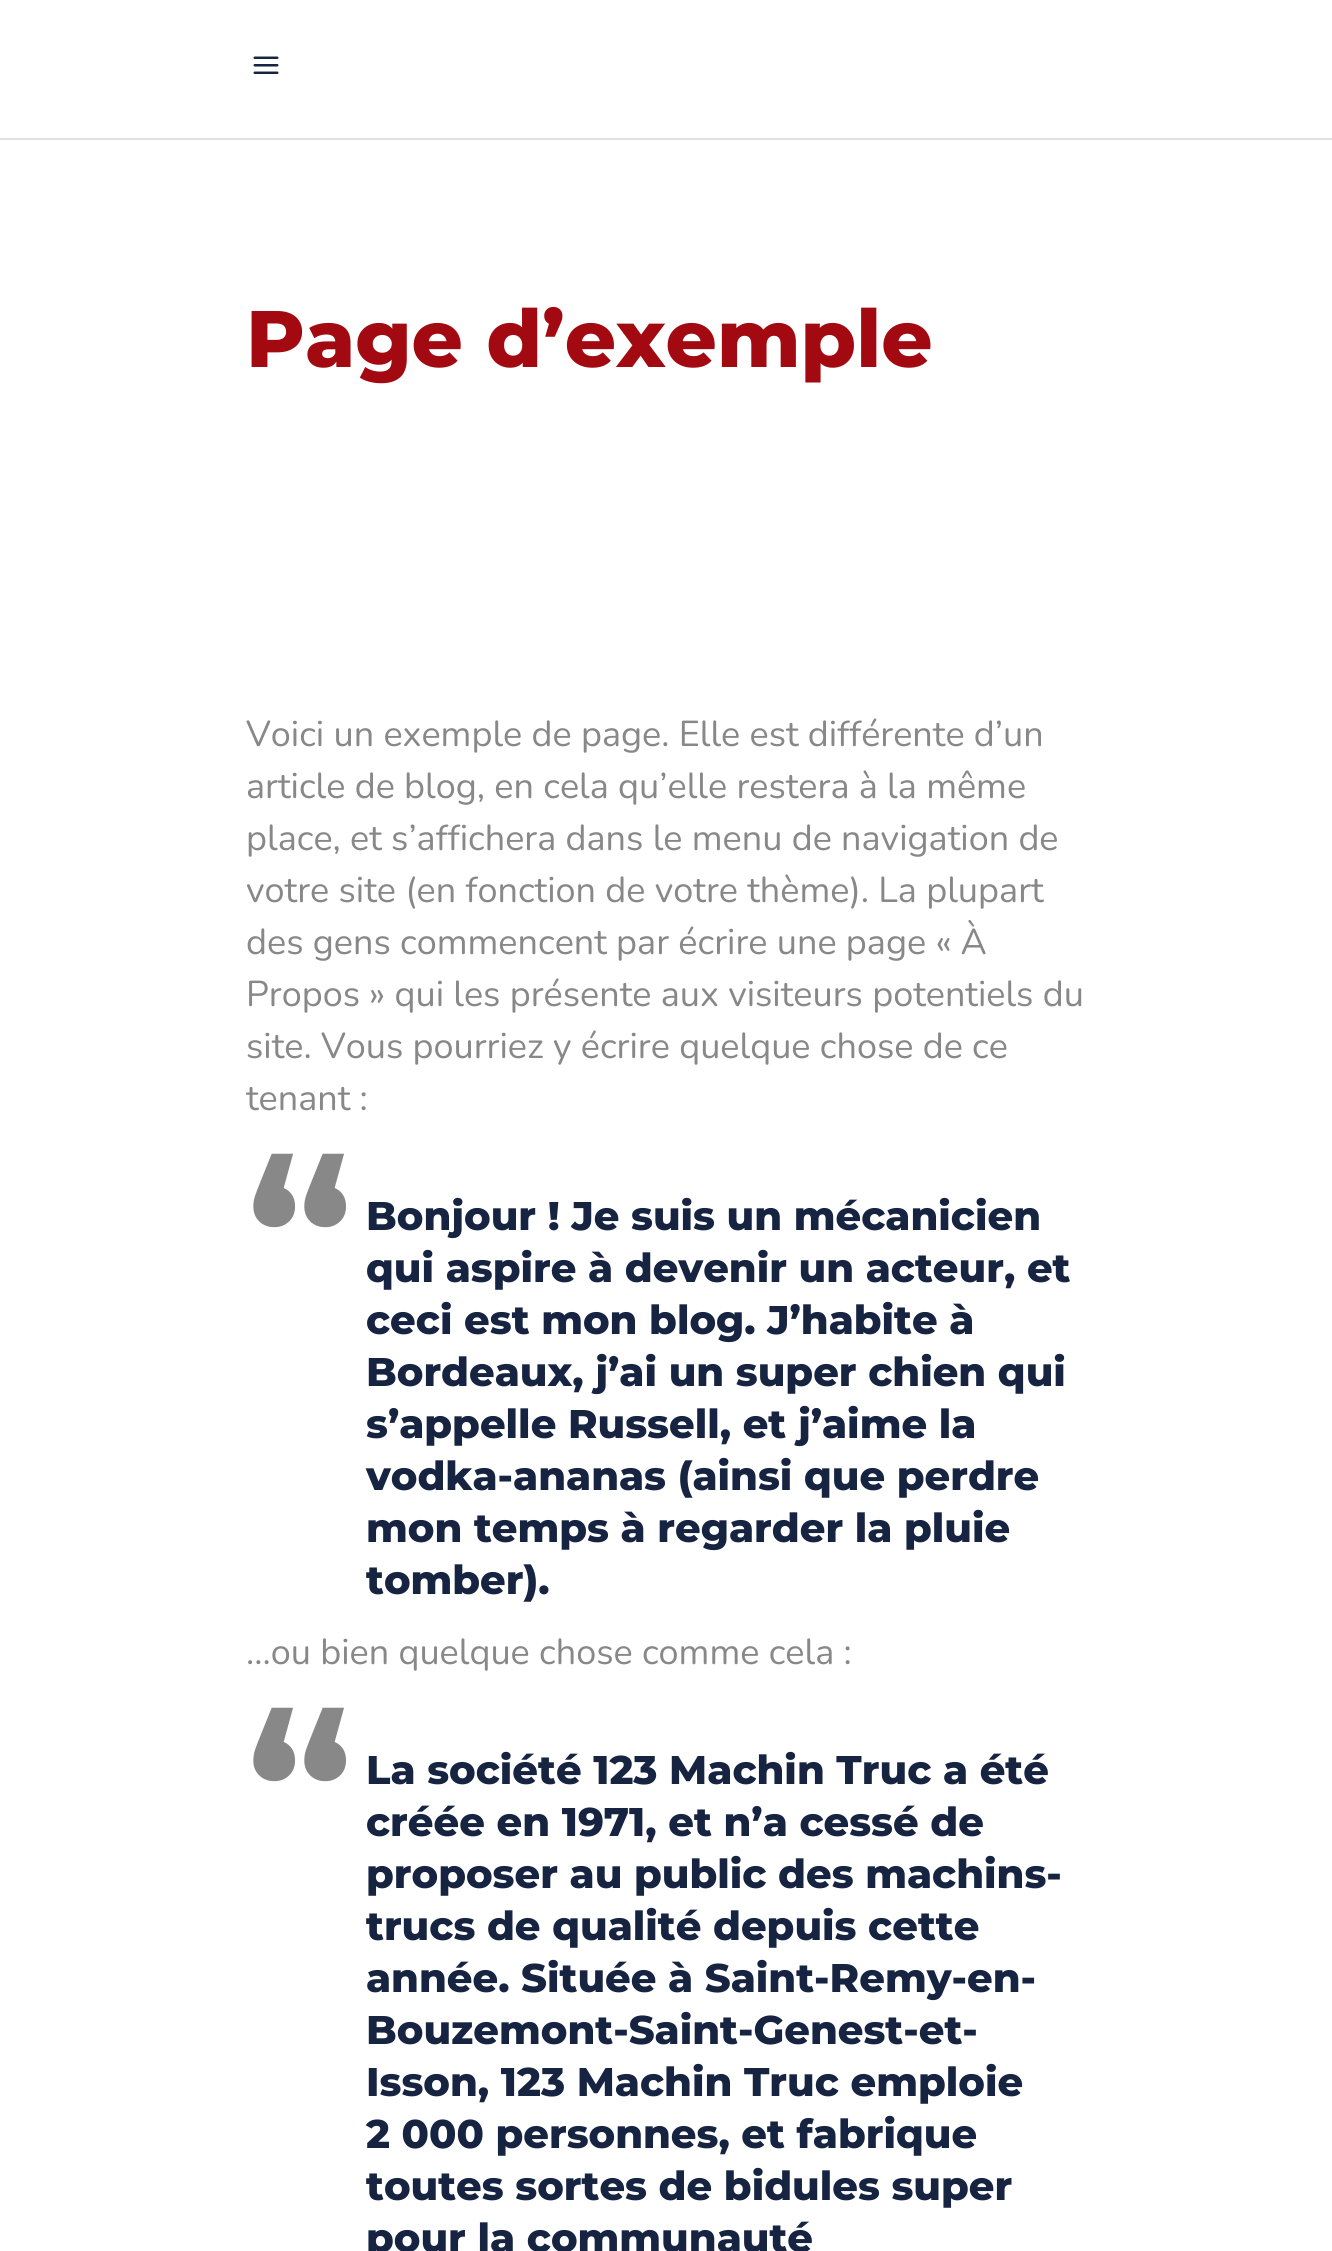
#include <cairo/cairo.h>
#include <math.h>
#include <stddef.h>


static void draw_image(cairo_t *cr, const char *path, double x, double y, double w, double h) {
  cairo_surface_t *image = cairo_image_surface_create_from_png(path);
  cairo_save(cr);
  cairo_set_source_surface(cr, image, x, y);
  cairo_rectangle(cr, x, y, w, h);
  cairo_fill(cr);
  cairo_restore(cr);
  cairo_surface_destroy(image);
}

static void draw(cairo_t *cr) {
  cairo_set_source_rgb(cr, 1, 1, 1);
  cairo_paint(cr);
  cairo_set_source_rgb(cr, 225 / 255.0, 225 / 255.0, 225 / 255.0);
  cairo_rectangle(cr, 0, 138, 1332, 2);
  cairo_fill(cr);
  draw_image(cr, "images/1.png", 253, 56, 26, 18);
  cairo_select_font_face(cr, "Montserrat ExtraBold", CAIRO_FONT_SLANT_NORMAL, CAIRO_FONT_WEIGHT_NORMAL);
  cairo_set_font_size(cr, 80);
  cairo_set_source_rgb(cr, 163 / 255.0, 9 / 255.0, 17 / 255.0);
  cairo_move_to(cr, 246, 367);
  cairo_show_text(cr, "Page d’exemple");
  cairo_select_font_face(cr, "Nunito", CAIRO_FONT_SLANT_NORMAL, CAIRO_FONT_WEIGHT_NORMAL);
  cairo_set_font_size(cr, 36);
  cairo_set_source_rgb(cr, 136 / 255.0, 136 / 255.0, 136 / 255.0);
  cairo_move_to(cr, 246, 746);
  cairo_show_text(cr, "Voici un exemple de page. Elle est différente d’un");
  cairo_move_to(cr, 246, 798);
  cairo_show_text(cr, "article de blog, en cela qu’elle restera à la même");
  cairo_move_to(cr, 246, 850);
  cairo_show_text(cr, "place, et s’affichera dans le menu de navigation de");
  cairo_move_to(cr, 246, 902);
  cairo_show_text(cr, "votre site (en fonction de votre thème). La plupart");
  cairo_move_to(cr, 246, 954);
  cairo_show_text(cr, "des gens commencent par écrire une page « À");
  cairo_move_to(cr, 246, 1006);
  cairo_show_text(cr, "Propos » qui les présente aux visiteurs potentiels du");
  cairo_move_to(cr, 246, 1058);
  cairo_show_text(cr, "site. Vous pourriez y écrire quelque chose de ce");
  cairo_move_to(cr, 246, 1110);
  cairo_show_text(cr, "tenant :");
  cairo_select_font_face(cr, "Montserrat", CAIRO_FONT_SLANT_NORMAL, CAIRO_FONT_WEIGHT_BOLD);
  cairo_set_font_size(cr, 216);
  cairo_move_to(cr, 246, 1314);
  cairo_show_text(cr, "“");
  cairo_select_font_face(cr, "Montserrat ExtraBold", CAIRO_FONT_SLANT_NORMAL, CAIRO_FONT_WEIGHT_NORMAL);
  cairo_set_font_size(cr, 40);
  cairo_set_source_rgb(cr, 22 / 255.0, 36 / 255.0, 65 / 255.0);
  cairo_move_to(cr, 366, 1230);
  cairo_show_text(cr, "Bonjour ! Je suis un mécanicien");
  cairo_move_to(cr, 366, 1282);
  cairo_show_text(cr, "qui aspire à devenir un acteur, et");
  cairo_move_to(cr, 366, 1334);
  cairo_show_text(cr, "ceci est mon blog. J’habite à");
  cairo_move_to(cr, 366, 1386);
  cairo_show_text(cr, "Bordeaux, j’ai un super chien qui");
  cairo_move_to(cr, 366, 1438);
  cairo_show_text(cr, "s’appelle Russell, et j’aime la");
  cairo_move_to(cr, 366, 1490);
  cairo_show_text(cr, "vodka-ananas (ainsi que perdre");
  cairo_move_to(cr, 366, 1542);
  cairo_show_text(cr, "mon temps à regarder la pluie");
  cairo_move_to(cr, 366, 1594);
  cairo_show_text(cr, "tomber).");
  cairo_select_font_face(cr, "Nunito", CAIRO_FONT_SLANT_NORMAL, CAIRO_FONT_WEIGHT_NORMAL);
  cairo_set_font_size(cr, 36);
  cairo_set_source_rgb(cr, 136 / 255.0, 136 / 255.0, 136 / 255.0);
  cairo_move_to(cr, 246, 1664);
  cairo_show_text(cr, "…ou bien quelque chose comme cela :");
  cairo_select_font_face(cr, "Montserrat", CAIRO_FONT_SLANT_NORMAL, CAIRO_FONT_WEIGHT_BOLD);
  cairo_set_font_size(cr, 216);
  cairo_move_to(cr, 246, 1868);
  cairo_show_text(cr, "“");
  cairo_select_font_face(cr, "Montserrat ExtraBold", CAIRO_FONT_SLANT_NORMAL, CAIRO_FONT_WEIGHT_NORMAL);
  cairo_set_font_size(cr, 40);
  cairo_set_source_rgb(cr, 22 / 255.0, 36 / 255.0, 65 / 255.0);
  cairo_move_to(cr, 366, 1784);
  cairo_show_text(cr, "La société 123 Machin Truc a été");
  cairo_move_to(cr, 366, 1836);
  cairo_show_text(cr, "créée en 1971, et n’a cessé de");
  cairo_move_to(cr, 366, 1888);
  cairo_show_text(cr, "proposer au public des machins-");
  cairo_move_to(cr, 366, 1940);
  cairo_show_text(cr, "trucs de qualité depuis cette");
  cairo_move_to(cr, 366, 1992);
  cairo_show_text(cr, "année. Située à Saint-Remy-en-");
  cairo_move_to(cr, 366, 2044);
  cairo_show_text(cr, "Bouzemont-Saint-Genest-et-");
  cairo_move_to(cr, 366, 2096);
  cairo_show_text(cr, "Isson, 123 Machin Truc emploie");
  cairo_move_to(cr, 366, 2148);
  cairo_show_text(cr, "2 000 personnes, et fabrique");
  cairo_move_to(cr, 366, 2200);
  cairo_show_text(cr, "toutes sortes de bidules super");
  cairo_move_to(cr, 366, 2252);
  cairo_show_text(cr, "pour la communauté");
}

int main(void) {
  cairo_surface_t *surface = cairo_image_surface_create(CAIRO_FORMAT_RGB24, 1332, 2251);
  cairo_t *cr = cairo_create(surface);
  cairo_font_options_t *options = cairo_font_options_create();
  cairo_font_options_set_hint_metrics(options, CAIRO_HINT_METRICS_OFF);
  cairo_font_options_set_hint_style(options, CAIRO_HINT_STYLE_NONE);
  cairo_set_font_options(cr, options);
  cairo_set_miter_limit(cr, 4);
  draw(cr);
  cairo_surface_write_to_png(surface, "out.png");
  cairo_font_options_destroy(options);
  cairo_destroy(cr);
  cairo_surface_destroy(surface);
  return 0;
}
